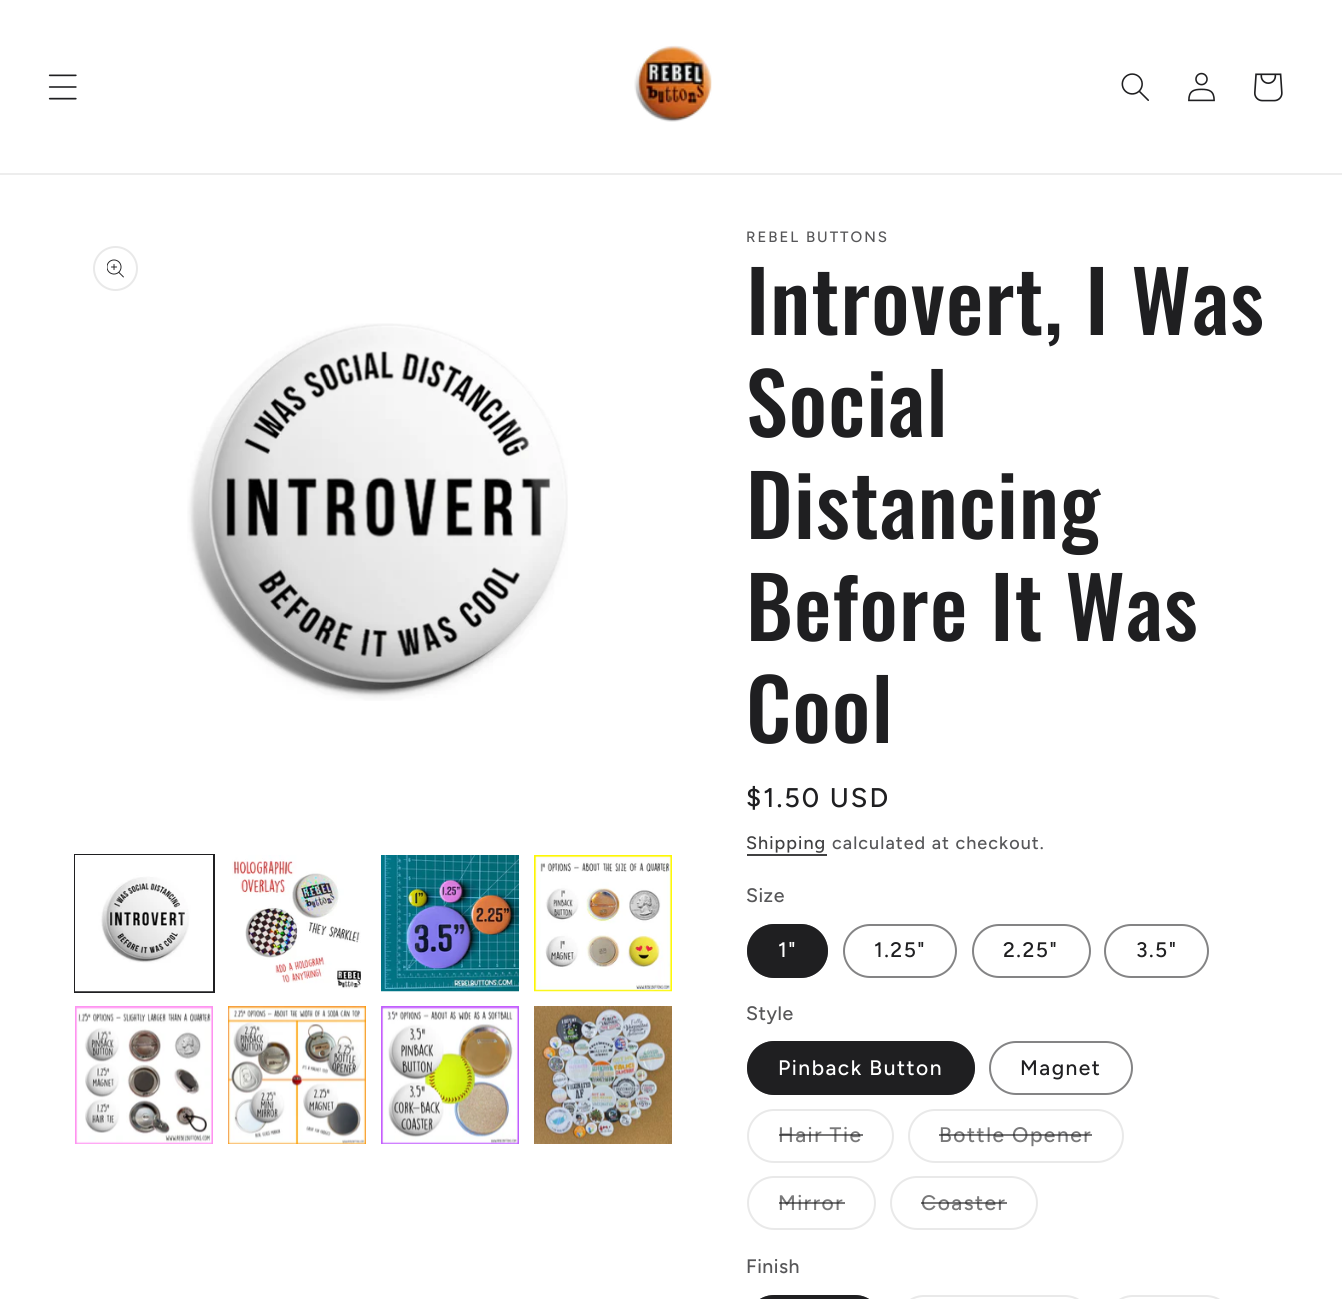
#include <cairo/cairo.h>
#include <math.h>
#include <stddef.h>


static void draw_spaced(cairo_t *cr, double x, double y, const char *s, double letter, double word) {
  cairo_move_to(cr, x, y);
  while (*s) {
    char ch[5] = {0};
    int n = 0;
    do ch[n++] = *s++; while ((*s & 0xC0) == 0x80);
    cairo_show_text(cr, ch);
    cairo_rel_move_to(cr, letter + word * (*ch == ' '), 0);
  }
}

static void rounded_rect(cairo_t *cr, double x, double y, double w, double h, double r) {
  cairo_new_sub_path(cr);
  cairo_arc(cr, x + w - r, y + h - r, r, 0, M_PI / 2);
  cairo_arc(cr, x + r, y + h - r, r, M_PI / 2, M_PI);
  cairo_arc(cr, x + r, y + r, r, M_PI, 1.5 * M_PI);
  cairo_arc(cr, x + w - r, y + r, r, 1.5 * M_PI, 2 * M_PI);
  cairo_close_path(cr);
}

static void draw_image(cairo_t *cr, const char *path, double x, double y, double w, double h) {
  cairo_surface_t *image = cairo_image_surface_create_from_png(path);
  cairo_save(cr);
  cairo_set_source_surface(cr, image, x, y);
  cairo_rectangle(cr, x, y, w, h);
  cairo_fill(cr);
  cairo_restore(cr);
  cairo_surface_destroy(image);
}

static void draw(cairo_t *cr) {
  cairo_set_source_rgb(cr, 1, 1, 1);
  cairo_paint(cr);
  cairo_set_source_rgb(cr, 237 / 255.0, 237 / 255.0, 237 / 255.0);
  cairo_rectangle(cr, 0, 173, 1342, 2);
  cairo_fill(cr);
  draw_image(cr, "images/1.png", 48, 74, 29, 26);
  draw_image(cr, "images/2.png", 634, 45, 78, 77);
  draw_image(cr, "images/3.png", 1121, 73, 28, 28);
  draw_image(cr, "images/4.png", 1188, 72, 27, 30);
  draw_image(cr, "images/5.png", 1254, 73, 29, 29);
  cairo_arc(cr, 115.5, 268.5, 21.5, 0, 2 * M_PI);
  cairo_set_source_rgb(cr, 233 / 255.0, 233 / 255.0, 233 / 255.0);
  cairo_stroke(cr);
  draw_image(cr, "images/6.png", 107, 259, 17, 19);
  draw_image(cr, "images/7.png", 187, 323, 381, 378);
  cairo_rectangle(cr, 75, 855, 139, 137);
  cairo_set_source_rgb(cr, 31 / 255.0, 31 / 255.0, 33 / 255.0);
  cairo_stroke(cr);
  draw_image(cr, "images/8.png", 75, 855, 138, 137);
  draw_image(cr, "images/9.png", 232, 855, 129, 134);
  draw_image(cr, "images/10.png", 381, 855, 138, 137);
  draw_image(cr, "images/11.png", 534, 855, 138, 137);
  draw_image(cr, "images/12.png", 75, 1006, 138, 138);
  draw_image(cr, "images/13.png", 228, 1006, 138, 138);
  draw_image(cr, "images/14.png", 381, 1006, 138, 138);
  draw_image(cr, "images/15.png", 534, 1006, 138, 138);
  cairo_set_source_rgb(cr, 65 / 255.0, 65 / 255.0, 66 / 255.0);
  cairo_rectangle(cr, 747, 854, 80, 2);
  cairo_fill(cr);
  cairo_set_source_rgb(cr, 31 / 255.0, 31 / 255.0, 33 / 255.0);
  rounded_rect(cr, 747, 924, 81, 54, 27);
  cairo_fill(cr);
  rounded_rect(cr, 748, 925, 79, 52, 26);
  cairo_set_source_rgba(cr, 31 / 255.0, 31 / 255.0, 33 / 255.0, 0.55);
  cairo_stroke(cr);
  rounded_rect(cr, 844, 925, 112, 52, 26);
  cairo_set_source_rgb(cr, 132 / 255.0, 132 / 255.0, 133 / 255.0);
  cairo_stroke(cr);
  rounded_rect(cr, 973, 925, 117, 52, 26);
  cairo_stroke(cr);
  rounded_rect(cr, 1105, 925, 103, 52, 26);
  cairo_stroke(cr);
  cairo_set_source_rgb(cr, 31 / 255.0, 31 / 255.0, 33 / 255.0);
  rounded_rect(cr, 747, 1041, 228, 54, 27);
  cairo_fill(cr);
  rounded_rect(cr, 748, 1042, 226, 52, 26);
  cairo_set_source_rgba(cr, 31 / 255.0, 31 / 255.0, 33 / 255.0, 0.55);
  cairo_stroke(cr);
  rounded_rect(cr, 990, 1042, 142, 52, 26);
  cairo_set_source_rgb(cr, 132 / 255.0, 132 / 255.0, 133 / 255.0);
  cairo_stroke(cr);
  rounded_rect(cr, 748, 1110, 145, 52, 26);
  cairo_set_source_rgb(cr, 233 / 255.0, 233 / 255.0, 233 / 255.0);
  cairo_stroke(cr);
  rounded_rect(cr, 909, 1110, 214, 52, 26);
  cairo_stroke(cr);
  rounded_rect(cr, 748, 1177, 127, 52, 26);
  cairo_stroke(cr);
  rounded_rect(cr, 891, 1177, 146, 52, 26);
  cairo_stroke(cr);
  cairo_set_source_rgb(cr, 31 / 255.0, 31 / 255.0, 33 / 255.0);
  rounded_rect(cr, 747, 1295, 135, 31, 27);
  cairo_fill(cr);
  rounded_rect(cr, 748, 1296, 133, 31, 26);
  cairo_set_source_rgba(cr, 31 / 255.0, 31 / 255.0, 33 / 255.0, 0.55);
  cairo_stroke(cr);
  rounded_rect(cr, 898, 1296, 193, 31, 26);
  cairo_set_source_rgb(cr, 233 / 255.0, 233 / 255.0, 233 / 255.0);
  cairo_stroke(cr);
  rounded_rect(cr, 1107, 1296, 125, 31, 26);
  cairo_stroke(cr);
  cairo_select_font_face(cr, "Figtree Medium", CAIRO_FONT_SLANT_NORMAL, CAIRO_FONT_WEIGHT_NORMAL);
  cairo_set_font_size(cr, 15);
  cairo_set_source_rgb(cr, 87 / 255.0, 87 / 255.0, 89 / 255.0);
  draw_spaced(cr, 746, 242, "REBEL BUTTONS", 2, 0);
  cairo_select_font_face(cr, "Oswald Medium", CAIRO_FONT_SLANT_NORMAL, CAIRO_FONT_WEIGHT_NORMAL);
  cairo_set_font_size(cr, 84);
  cairo_set_source_rgb(cr, 31 / 255.0, 31 / 255.0, 33 / 255.0);
  draw_spaced(cr, 746, 335, "Introvert, I Was", 1.25, 0);
  draw_spaced(cr, 746, 437, "Social", 1.25, 0);
  draw_spaced(cr, 746, 539, "Distancing", 1.25, 0);
  draw_spaced(cr, 746, 641, "Before It Was", 1.25, 0);
  draw_spaced(cr, 746, 743, "Cool", 1.25, 0);
  cairo_select_font_face(cr, "Figtree Medium", CAIRO_FONT_SLANT_NORMAL, CAIRO_FONT_WEIGHT_NORMAL);
  cairo_set_font_size(cr, 27);
  draw_spaced(cr, 746, 807, "$1.50 USD", 2, 0);
  cairo_set_font_size(cr, 18);
  cairo_set_source_rgb(cr, 65 / 255.0, 65 / 255.0, 66 / 255.0);
  draw_spaced(cr, 746, 849, "Shipping", 1.05, 0);
  cairo_set_source_rgb(cr, 87 / 255.0, 87 / 255.0, 89 / 255.0);
  draw_spaced(cr, 832, 849, "calculated at checkout.", 1.05, 0);
  cairo_set_font_size(cr, 19.5);
  draw_spaced(cr, 746, 902, "Size", 0.5, 0);
  cairo_set_font_size(cr, 21);
  cairo_set_source_rgb(cr, 1, 1, 1);
  draw_spaced(cr, 778, 957, "1\"", 1.5, 0);
  cairo_set_source_rgb(cr, 31 / 255.0, 31 / 255.0, 33 / 255.0);
  draw_spaced(cr, 874, 957, "1.25\"", 1.5, 0);
  draw_spaced(cr, 1003, 957, "2.25\"", 1.5, 0);
  draw_spaced(cr, 1136, 957, "3.5\"", 1.5, 0);
  cairo_set_font_size(cr, 19.5);
  cairo_set_source_rgb(cr, 87 / 255.0, 87 / 255.0, 89 / 255.0);
  draw_spaced(cr, 746, 1020, "Style", 0.5, 0);
  cairo_set_font_size(cr, 21);
  cairo_set_source_rgb(cr, 1, 1, 1);
  draw_spaced(cr, 778, 1075, "Pinback Button", 1.5, 0);
  cairo_set_source_rgb(cr, 31 / 255.0, 31 / 255.0, 33 / 255.0);
  draw_spaced(cr, 1020, 1075, "Magnet", 1.5, 0);
  cairo_set_source_rgb(cr, 121 / 255.0, 121 / 255.0, 122 / 255.0);
  draw_spaced(cr, 778, 1142, "Hair Tie", 1.5, 0);
  cairo_set_source_rgba(cr, 31 / 255.0, 31 / 255.0, 33 / 255.0, 0.6);
  cairo_rectangle(cr, 779, 1134, 84, 2);
  cairo_fill(cr);
  cairo_set_source_rgb(cr, 121 / 255.0, 121 / 255.0, 122 / 255.0);
  draw_spaced(cr, 939, 1142, "Bottle Opener", 1.5, 0);
  cairo_set_source_rgba(cr, 31 / 255.0, 31 / 255.0, 33 / 255.0, 0.6);
  cairo_rectangle(cr, 939, 1134, 153, 2);
  cairo_fill(cr);
  cairo_set_source_rgb(cr, 121 / 255.0, 121 / 255.0, 122 / 255.0);
  draw_spaced(cr, 778, 1210, "Mirror", 1.5, 0);
  cairo_set_source_rgba(cr, 31 / 255.0, 31 / 255.0, 33 / 255.0, 0.6);
  cairo_rectangle(cr, 779, 1202, 66, 2);
  cairo_fill(cr);
  cairo_set_source_rgb(cr, 121 / 255.0, 121 / 255.0, 122 / 255.0);
  draw_spaced(cr, 921, 1210, "Coaster", 1.5, 0);
  cairo_set_source_rgba(cr, 31 / 255.0, 31 / 255.0, 33 / 255.0, 0.6);
  cairo_rectangle(cr, 921, 1202, 86, 2);
  cairo_fill(cr);
  cairo_set_font_size(cr, 19.5);
  cairo_set_source_rgb(cr, 87 / 255.0, 87 / 255.0, 89 / 255.0);
  draw_spaced(cr, 746, 1273, "Finish", 0.5, 0);
}

int main(void) {
  cairo_surface_t *surface = cairo_image_surface_create(CAIRO_FORMAT_RGB24, 1342, 1299);
  cairo_t *cr = cairo_create(surface);
  cairo_font_options_t *options = cairo_font_options_create();
  cairo_font_options_set_hint_metrics(options, CAIRO_HINT_METRICS_OFF);
  cairo_font_options_set_hint_style(options, CAIRO_HINT_STYLE_NONE);
  cairo_set_font_options(cr, options);
  cairo_set_miter_limit(cr, 4);
  draw(cr);
  cairo_surface_write_to_png(surface, "out.png");
  cairo_font_options_destroy(options);
  cairo_destroy(cr);
  cairo_surface_destroy(surface);
  return 0;
}
